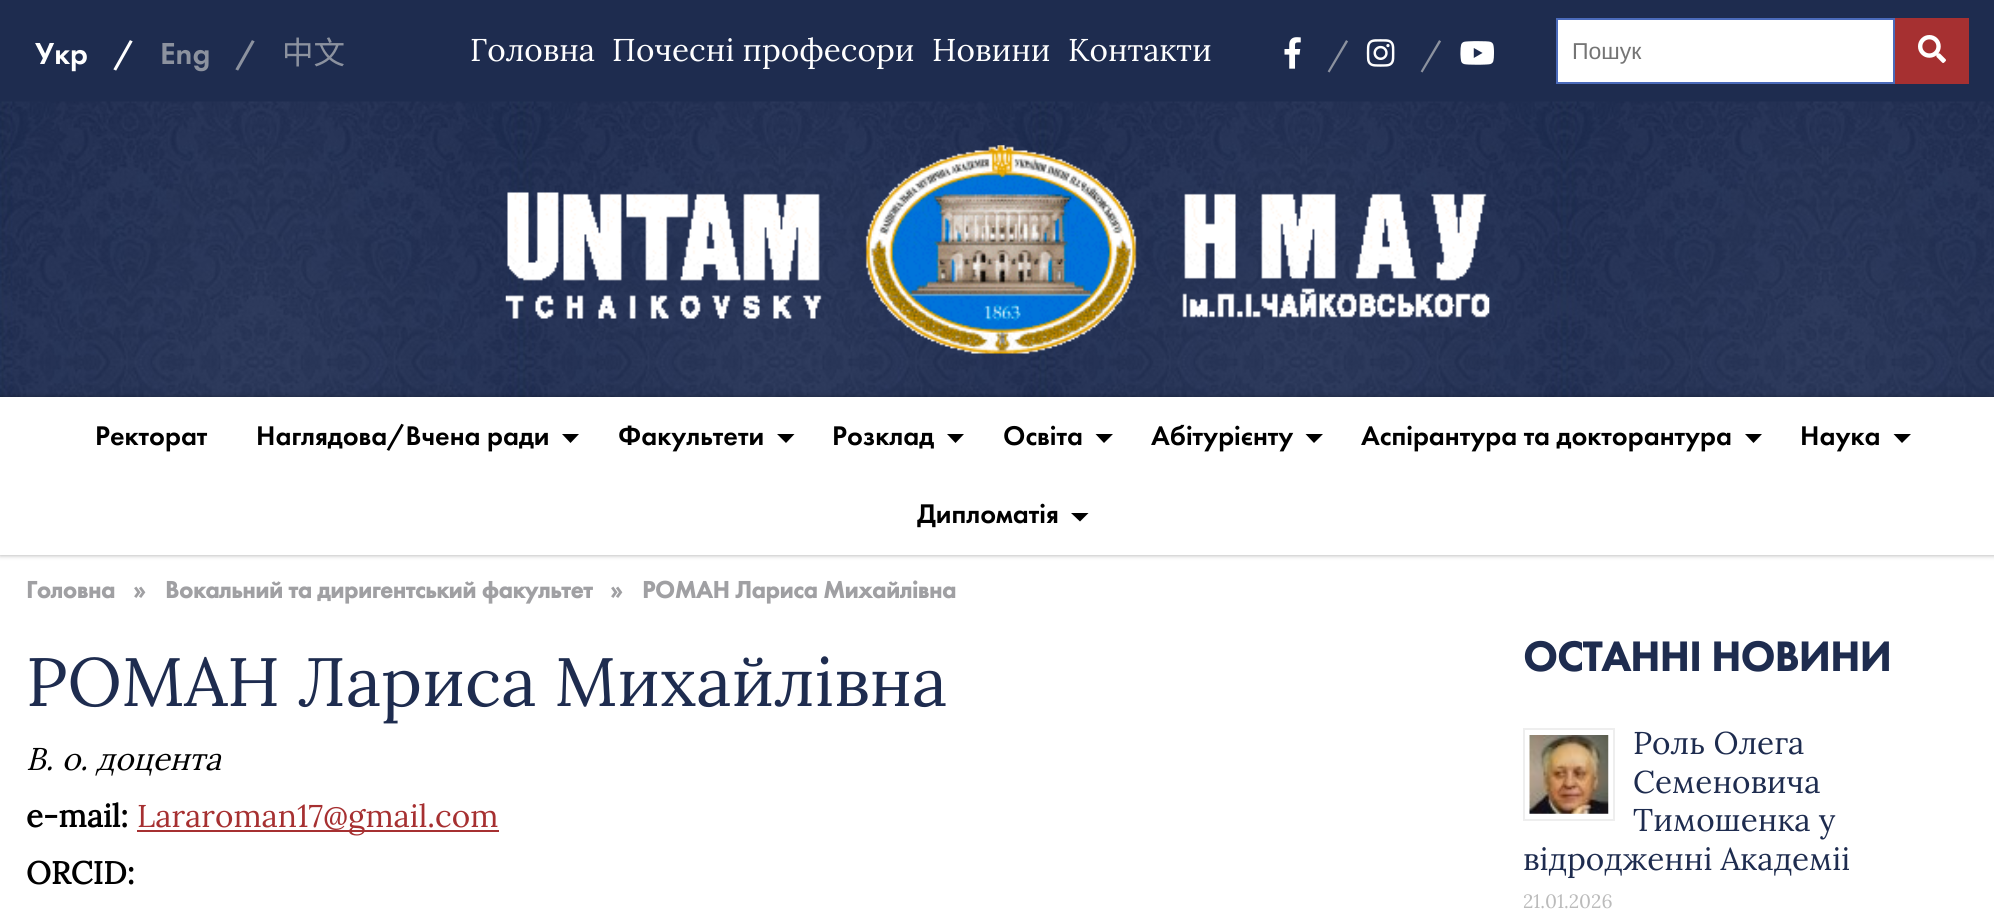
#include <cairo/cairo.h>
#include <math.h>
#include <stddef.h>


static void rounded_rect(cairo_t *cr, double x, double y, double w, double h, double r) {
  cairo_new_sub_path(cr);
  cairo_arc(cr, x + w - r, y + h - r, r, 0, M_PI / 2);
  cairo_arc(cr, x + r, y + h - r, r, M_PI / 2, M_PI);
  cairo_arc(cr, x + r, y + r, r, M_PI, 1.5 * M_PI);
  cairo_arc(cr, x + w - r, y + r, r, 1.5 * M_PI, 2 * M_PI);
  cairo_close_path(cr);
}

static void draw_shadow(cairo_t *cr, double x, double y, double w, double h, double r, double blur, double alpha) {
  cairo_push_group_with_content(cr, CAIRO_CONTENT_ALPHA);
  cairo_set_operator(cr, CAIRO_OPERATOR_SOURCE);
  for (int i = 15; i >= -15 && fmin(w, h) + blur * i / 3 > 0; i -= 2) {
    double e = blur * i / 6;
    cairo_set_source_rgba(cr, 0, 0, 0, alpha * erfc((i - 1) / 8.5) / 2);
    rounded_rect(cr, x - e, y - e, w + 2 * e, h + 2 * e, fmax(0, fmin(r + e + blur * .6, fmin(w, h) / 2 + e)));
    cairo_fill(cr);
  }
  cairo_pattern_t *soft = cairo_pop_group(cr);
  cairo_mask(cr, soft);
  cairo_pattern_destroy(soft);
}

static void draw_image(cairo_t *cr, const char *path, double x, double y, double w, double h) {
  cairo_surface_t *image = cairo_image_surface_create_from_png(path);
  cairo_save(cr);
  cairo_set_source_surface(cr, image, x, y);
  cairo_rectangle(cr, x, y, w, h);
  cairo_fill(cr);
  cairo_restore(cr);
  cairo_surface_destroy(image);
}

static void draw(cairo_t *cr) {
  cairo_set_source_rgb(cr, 1, 1, 1);
  cairo_paint(cr);
  cairo_set_source_rgb(cr, 30 / 255.0, 44 / 255.0, 79 / 255.0);
  cairo_rectangle(cr, 0, 0, 1994, 102);
  cairo_fill(cr);
  draw_image(cr, "images/1.png", 1284, 37, 17, 32);
  draw_image(cr, "images/2.png", 1366, 39, 29, 28);
  draw_image(cr, "images/3.png", 1460, 41, 34, 24);
  cairo_set_source_rgb(cr, 1, 1, 1);
  cairo_rectangle(cr, 1557, 19, 337, 64);
  cairo_fill_preserve(cr);
  cairo_set_source_rgb(cr, 75 / 255.0, 107 / 255.0, 187 / 255.0);
  cairo_stroke(cr);
  cairo_set_source_rgb(cr, 166 / 255.0, 48 / 255.0, 49 / 255.0);
  cairo_rectangle(cr, 1895, 18, 74, 66);
  cairo_fill(cr);
  draw_image(cr, "images/4.png", 1918, 35, 28, 28);
  draw_image(cr, "images/5.png", 0, 101, 1994, 296);
  draw_image(cr, "images/6.png", 505, 145, 985, 209);
  cairo_set_source_rgb(cr, 0, 0, 0);
  draw_shadow(cr, 0, 397, 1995, 158, 0, 2.5, 0.35);
  cairo_set_source_rgb(cr, 1, 1, 1);
  cairo_rectangle(cr, 0, 397, 1994, 158);
  cairo_fill(cr);
  cairo_set_source_rgb(cr, 0, 0, 0);
  cairo_new_path(cr);
  cairo_move_to(cr, 562, 434);
  cairo_line_to(cr, 579, 434);
  cairo_line_to(cr, 570.5, 443);
  cairo_close_path(cr);
  cairo_fill(cr);
  cairo_new_path(cr);
  cairo_move_to(cr, 777, 434);
  cairo_line_to(cr, 794.5, 434);
  cairo_line_to(cr, 786, 443);
  cairo_close_path(cr);
  cairo_fill(cr);
  cairo_new_path(cr);
  cairo_move_to(cr, 947, 434);
  cairo_line_to(cr, 964, 434);
  cairo_line_to(cr, 955.5, 443);
  cairo_close_path(cr);
  cairo_fill(cr);
  cairo_new_path(cr);
  cairo_move_to(cr, 1095.5, 434);
  cairo_line_to(cr, 1113, 434);
  cairo_line_to(cr, 1104, 443);
  cairo_close_path(cr);
  cairo_fill(cr);
  cairo_new_path(cr);
  cairo_move_to(cr, 1305.5, 434);
  cairo_line_to(cr, 1323, 434);
  cairo_line_to(cr, 1314, 443);
  cairo_close_path(cr);
  cairo_fill(cr);
  cairo_new_path(cr);
  cairo_move_to(cr, 1745, 434);
  cairo_line_to(cr, 1762, 434);
  cairo_line_to(cr, 1753.5, 443);
  cairo_close_path(cr);
  cairo_fill(cr);
  cairo_new_path(cr);
  cairo_move_to(cr, 1893.5, 434);
  cairo_line_to(cr, 1911, 434);
  cairo_line_to(cr, 1902, 443);
  cairo_close_path(cr);
  cairo_fill(cr);
  cairo_new_path(cr);
  cairo_move_to(cr, 1071, 513);
  cairo_line_to(cr, 1088.5, 513);
  cairo_line_to(cr, 1080, 521.5);
  cairo_close_path(cr);
  cairo_fill(cr);
  cairo_set_source_rgb(cr, 166 / 255.0, 48 / 255.0, 49 / 255.0);
  cairo_rectangle(cr, 137, 830, 362, 2);
  cairo_fill(cr);
  cairo_rectangle(cr, 1524, 729, 90, 91);
  cairo_set_source_rgb(cr, 238 / 255.0, 238 / 255.0, 238 / 255.0);
  cairo_stroke(cr);
  draw_image(cr, "images/7.png", 1529, 735, 80, 79);
  cairo_select_font_face(cr, "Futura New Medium", CAIRO_FONT_SLANT_NORMAL, CAIRO_FONT_WEIGHT_NORMAL);
  cairo_set_font_size(cr, 31.5);
  cairo_set_source_rgb(cr, 1, 1, 1);
  cairo_move_to(cr, 35, 64);
  cairo_show_text(cr, "Укр");
  cairo_move_to(cr, 114, 64);
  cairo_show_text(cr, "/");
  cairo_set_source_rgb(cr, 140 / 255.0, 146 / 255.0, 159 / 255.0);
  cairo_move_to(cr, 160, 64);
  cairo_show_text(cr, "Eng");
  cairo_move_to(cr, 236, 64);
  cairo_show_text(cr, "/");
  cairo_select_font_face(cr, "Noto Sans CJK SC", CAIRO_FONT_SLANT_NORMAL, CAIRO_FONT_WEIGHT_NORMAL);
  cairo_move_to(cr, 282, 64);
  cairo_show_text(cr, "中文");
  cairo_select_font_face(cr, "Lora", CAIRO_FONT_SLANT_NORMAL, CAIRO_FONT_WEIGHT_NORMAL);
  cairo_set_source_rgb(cr, 1, 1, 1);
  cairo_move_to(cr, 470, 61);
  cairo_show_text(cr, "Головна");
  cairo_move_to(cr, 612, 61);
  cairo_show_text(cr, "Почесні професори");
  cairo_move_to(cr, 932, 61);
  cairo_show_text(cr, "Новини");
  cairo_move_to(cr, 1068, 61);
  cairo_show_text(cr, "Контакти");
  cairo_set_source_rgb(cr, 140 / 255.0, 146 / 255.0, 159 / 255.0);
  cairo_move_to(cr, 1327, 64);
  cairo_show_text(cr, "/");
  cairo_move_to(cr, 1420, 64);
  cairo_show_text(cr, "/");
  cairo_select_font_face(cr, "Liberation Sans", CAIRO_FONT_SLANT_NORMAL, CAIRO_FONT_WEIGHT_NORMAL);
  cairo_set_font_size(cr, 23);
  cairo_set_source_rgb(cr, 117 / 255.0, 117 / 255.0, 117 / 255.0);
  cairo_move_to(cr, 1572, 59);
  cairo_show_text(cr, "Пошук");
  cairo_select_font_face(cr, "Futura New Medium", CAIRO_FONT_SLANT_NORMAL, CAIRO_FONT_WEIGHT_NORMAL);
  cairo_set_font_size(cr, 28);
  cairo_set_source_rgb(cr, 0, 0, 0);
  cairo_move_to(cr, 95, 445);
  cairo_show_text(cr, "Ректорат");
  cairo_move_to(cr, 256, 445);
  cairo_show_text(cr, "Наглядова/Вчена ради");
  cairo_move_to(cr, 618, 445);
  cairo_show_text(cr, "Факультети");
  cairo_move_to(cr, 832, 445);
  cairo_show_text(cr, "Розклад");
  cairo_move_to(cr, 1003, 445);
  cairo_show_text(cr, "Освіта");
  cairo_move_to(cr, 1151, 445);
  cairo_show_text(cr, "Абітурієнту");
  cairo_move_to(cr, 1361, 445);
  cairo_show_text(cr, "Аспірантура та докторантура");
  cairo_move_to(cr, 1800, 445);
  cairo_show_text(cr, "Наука");
  cairo_move_to(cr, 917, 523);
  cairo_show_text(cr, "Дипломатія");
  cairo_select_font_face(cr, "Futura New", CAIRO_FONT_SLANT_NORMAL, CAIRO_FONT_WEIGHT_BOLD);
  cairo_set_font_size(cr, 24.5);
  cairo_set_source_rgb(cr, 160 / 255.0, 160 / 255.0, 163 / 255.0);
  cairo_move_to(cr, 26, 598);
  cairo_show_text(cr, "Головна");
  cairo_move_to(cr, 133, 598);
  cairo_show_text(cr, "»");
  cairo_move_to(cr, 165, 598);
  cairo_show_text(cr, "Вокальний та диригентський факультет");
  cairo_move_to(cr, 610, 598);
  cairo_show_text(cr, "»");
  cairo_move_to(cr, 642, 598);
  cairo_show_text(cr, "РОМАН Лариса Михайлівна");
  cairo_select_font_face(cr, "Lora", CAIRO_FONT_SLANT_NORMAL, CAIRO_FONT_WEIGHT_NORMAL);
  cairo_set_font_size(cr, 68.3);
  cairo_set_source_rgb(cr, 30 / 255.0, 44 / 255.0, 79 / 255.0);
  cairo_move_to(cr, 26, 706);
  cairo_show_text(cr, "РОМАН Лариса Михайлівна");
  cairo_select_font_face(cr, "Lora", CAIRO_FONT_SLANT_ITALIC, CAIRO_FONT_WEIGHT_NORMAL);
  cairo_set_font_size(cr, 31.5);
  cairo_set_source_rgb(cr, 0, 0, 0);
  cairo_move_to(cr, 26, 770);
  cairo_show_text(cr, "В. о. доцента");
  cairo_select_font_face(cr, "Lora", CAIRO_FONT_SLANT_NORMAL, CAIRO_FONT_WEIGHT_BOLD);
  cairo_move_to(cr, 26, 827);
  cairo_show_text(cr, "e-mail:");
  cairo_select_font_face(cr, "Lora", CAIRO_FONT_SLANT_NORMAL, CAIRO_FONT_WEIGHT_NORMAL);
  cairo_set_source_rgb(cr, 166 / 255.0, 48 / 255.0, 49 / 255.0);
  cairo_move_to(cr, 137, 827);
  cairo_show_text(cr, "Lararoman17@gmail.com");
  cairo_select_font_face(cr, "Lora", CAIRO_FONT_SLANT_NORMAL, CAIRO_FONT_WEIGHT_BOLD);
  cairo_set_source_rgb(cr, 0, 0, 0);
  cairo_move_to(cr, 26, 884);
  cairo_show_text(cr, "ORCID:");
  cairo_select_font_face(cr, "Futura New", CAIRO_FONT_SLANT_NORMAL, CAIRO_FONT_WEIGHT_BOLD);
  cairo_set_font_size(cr, 42.5);
  cairo_set_source_rgb(cr, 30 / 255.0, 44 / 255.0, 79 / 255.0);
  cairo_move_to(cr, 1523, 671);
  cairo_show_text(cr, "ОСТАННІ НОВИНИ");
  cairo_select_font_face(cr, "Lora", CAIRO_FONT_SLANT_NORMAL, CAIRO_FONT_WEIGHT_NORMAL);
  cairo_set_font_size(cr, 31.5);
  cairo_move_to(cr, 1633, 754);
  cairo_show_text(cr, "Роль Олега");
  cairo_move_to(cr, 1633, 793);
  cairo_show_text(cr, "Семеновича");
  cairo_move_to(cr, 1633, 831);
  cairo_show_text(cr, "Тимошенка у");
  cairo_move_to(cr, 1523, 870);
  cairo_show_text(cr, "відродженні Академіі");
  cairo_set_font_size(cr, 19.25);
  cairo_set_source_rgb(cr, 187 / 255.0, 187 / 255.0, 187 / 255.0);
  cairo_move_to(cr, 1523, 908);
  cairo_show_text(cr, "21.01.2026");
}

int main(void) {
  cairo_surface_t *surface = cairo_image_surface_create(CAIRO_FORMAT_RGB24, 1994, 921);
  cairo_t *cr = cairo_create(surface);
  cairo_font_options_t *options = cairo_font_options_create();
  cairo_font_options_set_hint_metrics(options, CAIRO_HINT_METRICS_OFF);
  cairo_font_options_set_hint_style(options, CAIRO_HINT_STYLE_NONE);
  cairo_set_font_options(cr, options);
  cairo_set_miter_limit(cr, 4);
  draw(cr);
  cairo_surface_write_to_png(surface, "out.png");
  cairo_font_options_destroy(options);
  cairo_destroy(cr);
  cairo_surface_destroy(surface);
  return 0;
}
